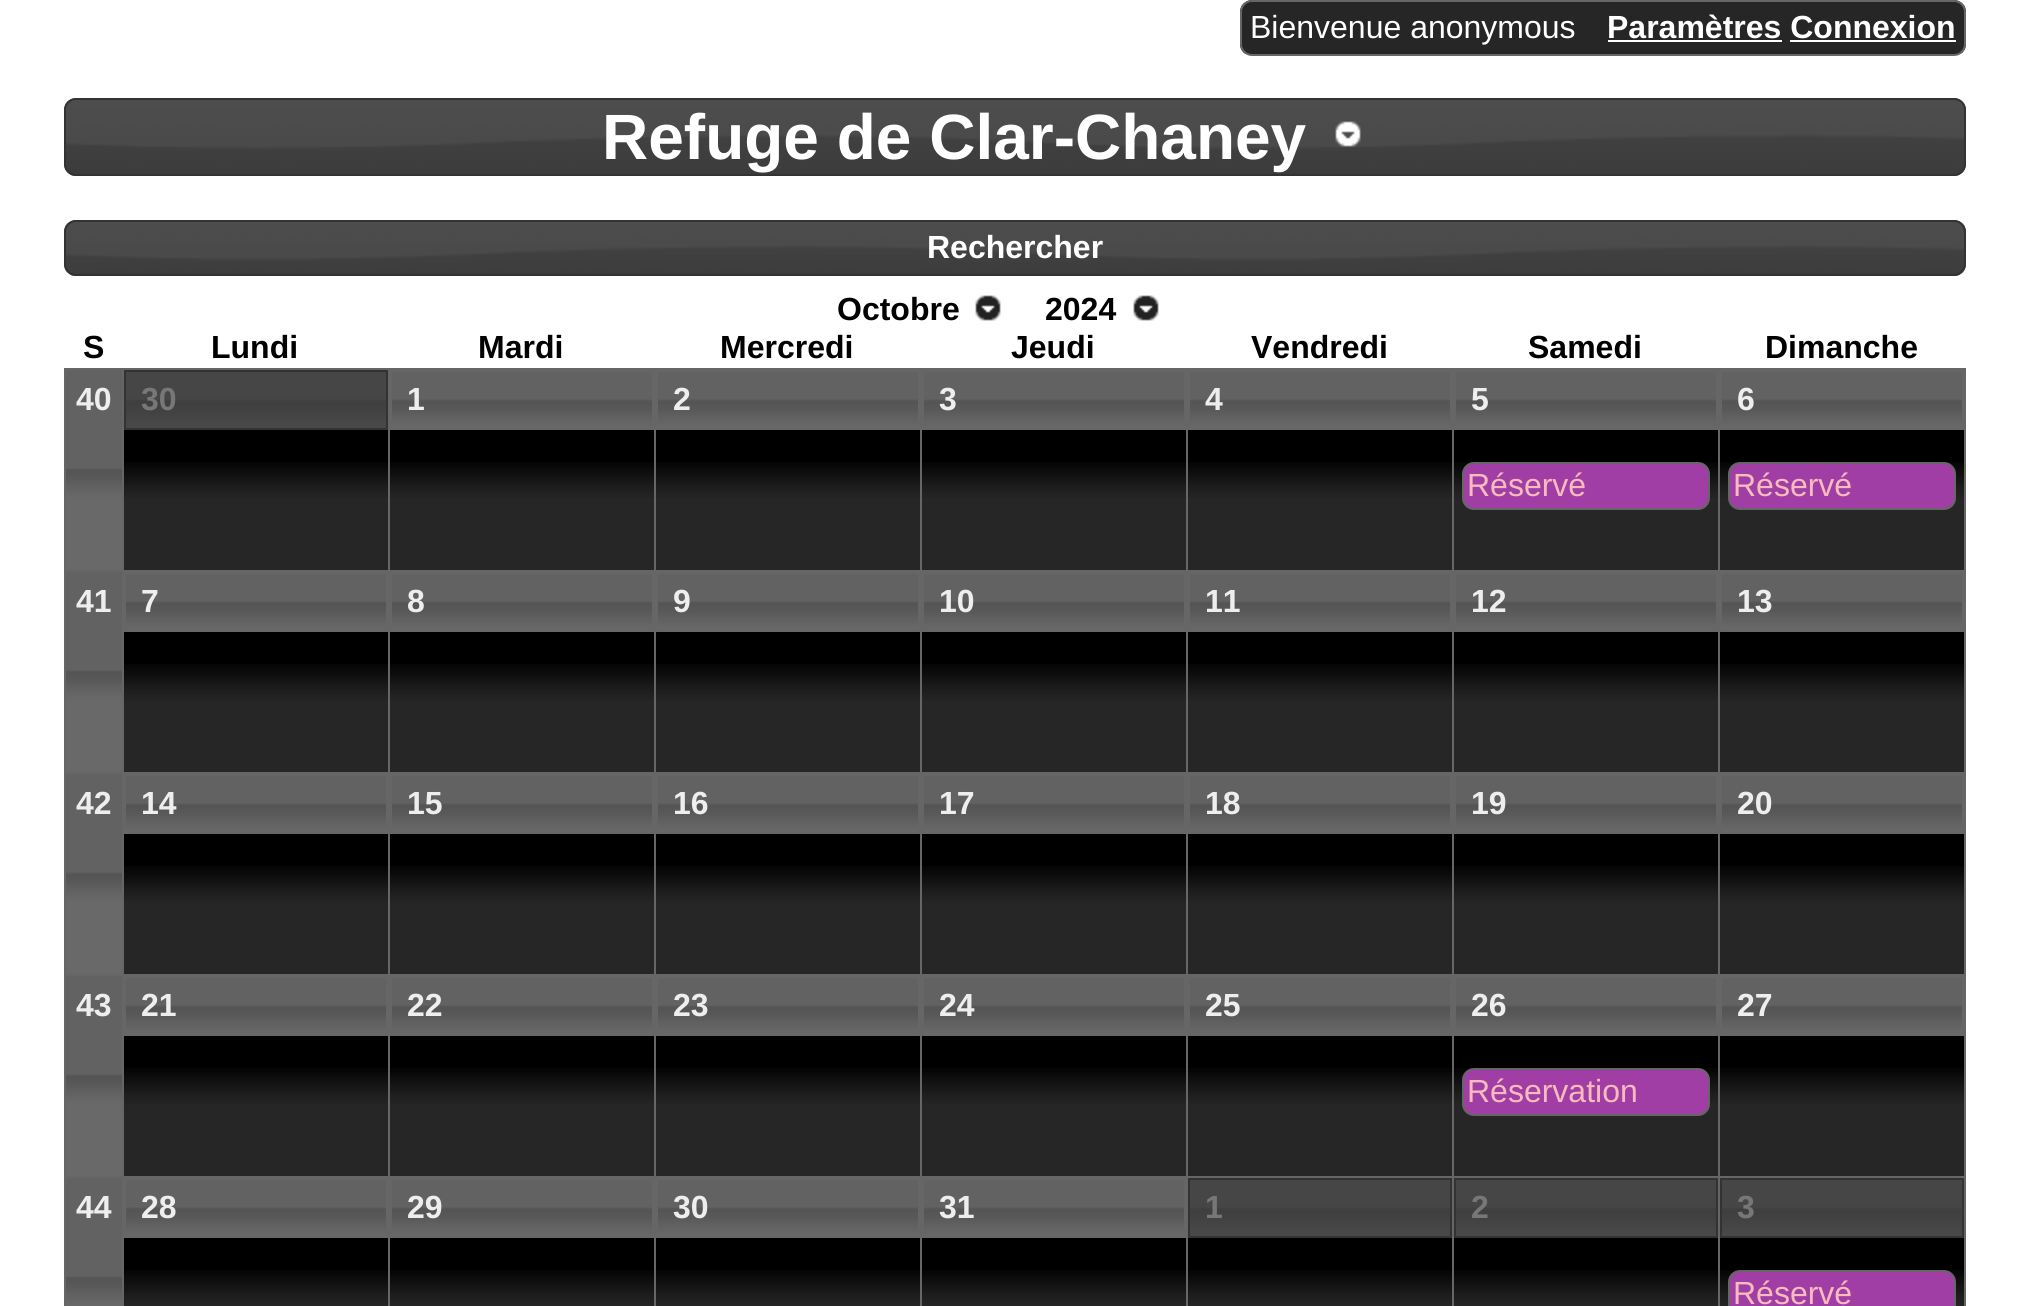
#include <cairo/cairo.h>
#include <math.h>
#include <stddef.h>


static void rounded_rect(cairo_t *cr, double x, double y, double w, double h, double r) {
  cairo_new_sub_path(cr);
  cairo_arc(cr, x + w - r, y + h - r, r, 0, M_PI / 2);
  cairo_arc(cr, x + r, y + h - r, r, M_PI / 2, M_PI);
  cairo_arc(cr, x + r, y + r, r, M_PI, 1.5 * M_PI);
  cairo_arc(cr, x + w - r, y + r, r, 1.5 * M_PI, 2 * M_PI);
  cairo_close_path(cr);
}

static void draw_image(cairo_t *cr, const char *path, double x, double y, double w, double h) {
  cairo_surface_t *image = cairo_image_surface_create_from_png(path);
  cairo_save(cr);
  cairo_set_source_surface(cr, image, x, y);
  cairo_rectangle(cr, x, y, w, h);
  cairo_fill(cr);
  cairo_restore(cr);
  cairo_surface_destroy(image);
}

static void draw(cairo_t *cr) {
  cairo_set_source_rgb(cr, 1, 1, 1);
  cairo_paint(cr);
  draw_image(cr, "images/1.png", 1240, 0, 726, 54);
  rounded_rect(cr, 1241, 1, 724, 54, 11);
  cairo_set_source_rgb(cr, 102 / 255.0, 102 / 255.0, 102 / 255.0);
  cairo_stroke(cr);
  cairo_set_source_rgb(cr, 1, 1, 1);
  cairo_rectangle(cr, 1608, 40, 174, 2);
  cairo_fill(cr);
  cairo_rectangle(cr, 1790, 40, 166, 2);
  cairo_fill(cr);
  draw_image(cr, "images/2.png", 64, 98, 1902, 78);
  rounded_rect(cr, 65, 99, 1900, 76, 11);
  cairo_set_source_rgb(cr, 51 / 255.0, 51 / 255.0, 51 / 255.0);
  cairo_stroke(cr);
  draw_image(cr, "images/3.png", 1335, 121, 26, 26);
  draw_image(cr, "images/4.png", 64, 220, 1902, 56);
  rounded_rect(cr, 65, 221, 1900, 54, 11);
  cairo_stroke(cr);
  draw_image(cr, "images/5.png", 975, 295, 26, 26);
  draw_image(cr, "images/5.png", 1133, 295, 26, 26);
  draw_image(cr, "images/6.png", 66, 370, 56, 200);
  cairo_set_source_rgb(cr, 102 / 255.0, 102 / 255.0, 102 / 255.0);
  cairo_rectangle(cr, 1718, 368, 248, 2);
  cairo_fill(cr);
  cairo_rectangle(cr, 1718, 570, 248, 2);
  cairo_fill(cr);
  cairo_rectangle(cr, 1718, 772, 248, 2);
  cairo_fill(cr);
  cairo_rectangle(cr, 1718, 974, 248, 2);
  cairo_fill(cr);
  cairo_rectangle(cr, 1718, 1176, 248, 2);
  cairo_fill(cr);
  cairo_rectangle(cr, 1718, 1176, 2, 130);
  cairo_fill(cr);
  cairo_rectangle(cr, 1452, 1176, 268, 2);
  cairo_fill(cr);
  cairo_rectangle(cr, 1718, 974, 2, 204);
  cairo_fill(cr);
  cairo_rectangle(cr, 1452, 974, 268, 2);
  cairo_fill(cr);
  cairo_rectangle(cr, 1718, 772, 2, 204);
  cairo_fill(cr);
  cairo_rectangle(cr, 1452, 772, 268, 2);
  cairo_fill(cr);
  cairo_rectangle(cr, 1718, 570, 2, 204);
  cairo_fill(cr);
  cairo_rectangle(cr, 1452, 570, 268, 2);
  cairo_fill(cr);
  cairo_rectangle(cr, 1718, 368, 2, 204);
  cairo_fill(cr);
  cairo_rectangle(cr, 1452, 368, 268, 2);
  cairo_fill(cr);
  cairo_rectangle(cr, 1452, 1176, 2, 130);
  cairo_fill(cr);
  cairo_rectangle(cr, 1186, 1176, 268, 2);
  cairo_fill(cr);
  cairo_rectangle(cr, 1452, 974, 2, 204);
  cairo_fill(cr);
  cairo_rectangle(cr, 1186, 974, 268, 2);
  cairo_fill(cr);
  cairo_rectangle(cr, 1452, 772, 2, 204);
  cairo_fill(cr);
  cairo_rectangle(cr, 1186, 772, 268, 2);
  cairo_fill(cr);
  cairo_rectangle(cr, 1452, 570, 2, 204);
  cairo_fill(cr);
  cairo_rectangle(cr, 1186, 570, 268, 2);
  cairo_fill(cr);
  cairo_rectangle(cr, 1452, 368, 2, 204);
  cairo_fill(cr);
  cairo_rectangle(cr, 1186, 368, 268, 2);
  cairo_fill(cr);
  cairo_rectangle(cr, 1186, 1176, 2, 130);
  cairo_fill(cr);
  cairo_rectangle(cr, 920, 1176, 268, 2);
  cairo_fill(cr);
  cairo_rectangle(cr, 1186, 974, 2, 204);
  cairo_fill(cr);
  cairo_rectangle(cr, 920, 974, 268, 2);
  cairo_fill(cr);
  cairo_rectangle(cr, 1186, 772, 2, 204);
  cairo_fill(cr);
  cairo_rectangle(cr, 920, 772, 268, 2);
  cairo_fill(cr);
  cairo_rectangle(cr, 1186, 570, 2, 204);
  cairo_fill(cr);
  cairo_rectangle(cr, 920, 570, 268, 2);
  cairo_fill(cr);
  cairo_rectangle(cr, 1186, 368, 2, 204);
  cairo_fill(cr);
  cairo_rectangle(cr, 920, 368, 268, 2);
  cairo_fill(cr);
  cairo_rectangle(cr, 920, 1176, 2, 130);
  cairo_fill(cr);
  cairo_rectangle(cr, 654, 1176, 268, 2);
  cairo_fill(cr);
  cairo_rectangle(cr, 920, 974, 2, 204);
  cairo_fill(cr);
  cairo_rectangle(cr, 654, 974, 268, 2);
  cairo_fill(cr);
  cairo_rectangle(cr, 920, 772, 2, 204);
  cairo_fill(cr);
  cairo_rectangle(cr, 654, 772, 268, 2);
  cairo_fill(cr);
  cairo_rectangle(cr, 920, 570, 2, 204);
  cairo_fill(cr);
  cairo_rectangle(cr, 654, 570, 268, 2);
  cairo_fill(cr);
  cairo_rectangle(cr, 920, 368, 2, 204);
  cairo_fill(cr);
  cairo_rectangle(cr, 654, 368, 268, 2);
  cairo_fill(cr);
  cairo_rectangle(cr, 654, 1176, 2, 130);
  cairo_fill(cr);
  cairo_rectangle(cr, 388, 1176, 268, 2);
  cairo_fill(cr);
  cairo_rectangle(cr, 654, 974, 2, 204);
  cairo_fill(cr);
  cairo_rectangle(cr, 388, 974, 268, 2);
  cairo_fill(cr);
  cairo_rectangle(cr, 654, 772, 2, 204);
  cairo_fill(cr);
  cairo_rectangle(cr, 388, 772, 268, 2);
  cairo_fill(cr);
  cairo_rectangle(cr, 654, 570, 2, 204);
  cairo_fill(cr);
  cairo_rectangle(cr, 388, 570, 268, 2);
  cairo_fill(cr);
  cairo_rectangle(cr, 654, 368, 2, 204);
  cairo_fill(cr);
  cairo_rectangle(cr, 388, 368, 268, 2);
  cairo_fill(cr);
  cairo_rectangle(cr, 388, 1176, 2, 130);
  cairo_fill(cr);
  cairo_rectangle(cr, 122, 1176, 268, 2);
  cairo_fill(cr);
  cairo_rectangle(cr, 388, 974, 2, 204);
  cairo_fill(cr);
  cairo_rectangle(cr, 122, 974, 268, 2);
  cairo_fill(cr);
  cairo_rectangle(cr, 388, 772, 2, 204);
  cairo_fill(cr);
  cairo_rectangle(cr, 122, 772, 268, 2);
  cairo_fill(cr);
  cairo_rectangle(cr, 388, 570, 2, 204);
  cairo_fill(cr);
  cairo_rectangle(cr, 122, 570, 268, 2);
  cairo_fill(cr);
  cairo_rectangle(cr, 388, 368, 2, 204);
  cairo_fill(cr);
  cairo_rectangle(cr, 122, 368, 268, 2);
  cairo_fill(cr);
  cairo_rectangle(cr, 122, 1176, 2, 130);
  cairo_fill(cr);
  cairo_rectangle(cr, 64, 1176, 60, 2);
  cairo_fill(cr);
  cairo_rectangle(cr, 122, 974, 2, 204);
  cairo_fill(cr);
  cairo_rectangle(cr, 64, 974, 60, 2);
  cairo_fill(cr);
  cairo_rectangle(cr, 122, 772, 2, 204);
  cairo_fill(cr);
  cairo_rectangle(cr, 64, 772, 60, 2);
  cairo_fill(cr);
  cairo_rectangle(cr, 122, 570, 2, 204);
  cairo_fill(cr);
  cairo_rectangle(cr, 64, 570, 60, 2);
  cairo_fill(cr);
  cairo_rectangle(cr, 122, 368, 2, 204);
  cairo_fill(cr);
  cairo_rectangle(cr, 64, 368, 60, 2);
  cairo_fill(cr);
  cairo_rectangle(cr, 64, 1176, 2, 130);
  cairo_fill(cr);
  cairo_rectangle(cr, 64, 974, 2, 204);
  cairo_fill(cr);
  cairo_rectangle(cr, 64, 772, 2, 204);
  cairo_fill(cr);
  cairo_rectangle(cr, 64, 570, 2, 204);
  cairo_fill(cr);
  cairo_rectangle(cr, 64, 368, 2, 204);
  cairo_fill(cr);
  cairo_set_source_rgb(cr, 0, 0, 0);
  cairo_rectangle(cr, 124, 430, 264, 32);
  cairo_fill(cr);
  draw_image(cr, "images/7.png", 124, 462, 264, 108);
  cairo_set_source_rgb(cr, 43 / 255.0, 43 / 255.0, 43 / 255.0);
  cairo_rectangle(cr, 126, 372, 260, 56);
  cairo_fill(cr);
  draw_image(cr, "images/8.png", 126, 372, 260, 56);
  cairo_rectangle(cr, 125, 371, 262, 58);
  cairo_set_source_rgb(cr, 51 / 255.0, 51 / 255.0, 51 / 255.0);
  cairo_stroke(cr);
  cairo_set_source_rgb(cr, 0, 0, 0);
  cairo_rectangle(cr, 390, 430, 264, 32);
  cairo_fill(cr);
  draw_image(cr, "images/7.png", 390, 462, 264, 108);
  draw_image(cr, "images/9.png", 392, 372, 260, 56);
  cairo_rectangle(cr, 391, 371, 262, 58);
  cairo_set_source_rgb(cr, 102 / 255.0, 102 / 255.0, 102 / 255.0);
  cairo_stroke(cr);
  cairo_set_source_rgb(cr, 0, 0, 0);
  cairo_rectangle(cr, 656, 430, 264, 32);
  cairo_fill(cr);
  draw_image(cr, "images/7.png", 656, 462, 264, 108);
  draw_image(cr, "images/9.png", 658, 372, 260, 56);
  cairo_rectangle(cr, 657, 371, 262, 58);
  cairo_set_source_rgb(cr, 102 / 255.0, 102 / 255.0, 102 / 255.0);
  cairo_stroke(cr);
  cairo_set_source_rgb(cr, 0, 0, 0);
  cairo_rectangle(cr, 922, 430, 264, 32);
  cairo_fill(cr);
  draw_image(cr, "images/7.png", 922, 462, 264, 108);
  draw_image(cr, "images/9.png", 924, 372, 260, 56);
  cairo_rectangle(cr, 923, 371, 262, 58);
  cairo_set_source_rgb(cr, 102 / 255.0, 102 / 255.0, 102 / 255.0);
  cairo_stroke(cr);
  cairo_set_source_rgb(cr, 0, 0, 0);
  cairo_rectangle(cr, 1188, 430, 264, 32);
  cairo_fill(cr);
  draw_image(cr, "images/7.png", 1188, 462, 264, 108);
  draw_image(cr, "images/9.png", 1190, 372, 260, 56);
  cairo_rectangle(cr, 1189, 371, 262, 58);
  cairo_set_source_rgb(cr, 102 / 255.0, 102 / 255.0, 102 / 255.0);
  cairo_stroke(cr);
  cairo_set_source_rgb(cr, 0, 0, 0);
  cairo_rectangle(cr, 1454, 430, 264, 32);
  cairo_fill(cr);
  draw_image(cr, "images/7.png", 1454, 462, 264, 108);
  draw_image(cr, "images/9.png", 1456, 372, 260, 56);
  cairo_rectangle(cr, 1455, 371, 262, 58);
  cairo_set_source_rgb(cr, 102 / 255.0, 102 / 255.0, 102 / 255.0);
  cairo_stroke(cr);
  cairo_set_source_rgb(cr, 160 / 255.0, 62 / 255.0, 165 / 255.0);
  rounded_rect(cr, 1463, 463, 246, 46, 11);
  cairo_fill_preserve(cr);
  cairo_set_source_rgb(cr, 102 / 255.0, 102 / 255.0, 102 / 255.0);
  cairo_stroke(cr);
  cairo_set_source_rgb(cr, 0, 0, 0);
  cairo_rectangle(cr, 1720, 430, 244, 32);
  cairo_fill(cr);
  draw_image(cr, "images/10.png", 1720, 462, 244, 108);
  cairo_set_source_rgb(cr, 102 / 255.0, 102 / 255.0, 102 / 255.0);
  cairo_rectangle(cr, 1964, 1176, 2, 130);
  cairo_fill(cr);
  cairo_rectangle(cr, 1964, 974, 2, 204);
  cairo_fill(cr);
  cairo_rectangle(cr, 1964, 772, 2, 204);
  cairo_fill(cr);
  cairo_rectangle(cr, 1964, 570, 2, 204);
  cairo_fill(cr);
  cairo_rectangle(cr, 1964, 368, 2, 204);
  cairo_fill(cr);
  draw_image(cr, "images/11.png", 1722, 372, 240, 56);
  cairo_rectangle(cr, 1721, 371, 242, 58);
  cairo_stroke(cr);
  cairo_set_source_rgb(cr, 160 / 255.0, 62 / 255.0, 165 / 255.0);
  rounded_rect(cr, 1729, 463, 226, 46, 11);
  cairo_fill_preserve(cr);
  cairo_set_source_rgb(cr, 102 / 255.0, 102 / 255.0, 102 / 255.0);
  cairo_stroke(cr);
  draw_image(cr, "images/6.png", 66, 572, 56, 200);
  cairo_set_source_rgb(cr, 0, 0, 0);
  cairo_rectangle(cr, 124, 632, 264, 32);
  cairo_fill(cr);
  draw_image(cr, "images/7.png", 124, 664, 264, 108);
  draw_image(cr, "images/9.png", 126, 574, 260, 56);
  cairo_rectangle(cr, 125, 573, 262, 58);
  cairo_set_source_rgb(cr, 102 / 255.0, 102 / 255.0, 102 / 255.0);
  cairo_stroke(cr);
  cairo_set_source_rgb(cr, 0, 0, 0);
  cairo_rectangle(cr, 390, 632, 264, 32);
  cairo_fill(cr);
  draw_image(cr, "images/7.png", 390, 664, 264, 108);
  draw_image(cr, "images/9.png", 392, 574, 260, 56);
  cairo_rectangle(cr, 391, 573, 262, 58);
  cairo_set_source_rgb(cr, 102 / 255.0, 102 / 255.0, 102 / 255.0);
  cairo_stroke(cr);
  cairo_set_source_rgb(cr, 0, 0, 0);
  cairo_rectangle(cr, 656, 632, 264, 32);
  cairo_fill(cr);
  draw_image(cr, "images/7.png", 656, 664, 264, 108);
  draw_image(cr, "images/9.png", 658, 574, 260, 56);
  cairo_rectangle(cr, 657, 573, 262, 58);
  cairo_set_source_rgb(cr, 102 / 255.0, 102 / 255.0, 102 / 255.0);
  cairo_stroke(cr);
  cairo_set_source_rgb(cr, 0, 0, 0);
  cairo_rectangle(cr, 922, 632, 264, 32);
  cairo_fill(cr);
  draw_image(cr, "images/7.png", 922, 664, 264, 108);
  draw_image(cr, "images/9.png", 924, 574, 260, 56);
  cairo_rectangle(cr, 923, 573, 262, 58);
  cairo_set_source_rgb(cr, 102 / 255.0, 102 / 255.0, 102 / 255.0);
  cairo_stroke(cr);
  cairo_set_source_rgb(cr, 0, 0, 0);
  cairo_rectangle(cr, 1188, 632, 264, 32);
  cairo_fill(cr);
  draw_image(cr, "images/7.png", 1188, 664, 264, 108);
  draw_image(cr, "images/9.png", 1190, 574, 260, 56);
  cairo_rectangle(cr, 1189, 573, 262, 58);
  cairo_set_source_rgb(cr, 102 / 255.0, 102 / 255.0, 102 / 255.0);
  cairo_stroke(cr);
  cairo_set_source_rgb(cr, 0, 0, 0);
  cairo_rectangle(cr, 1454, 632, 264, 32);
  cairo_fill(cr);
  draw_image(cr, "images/7.png", 1454, 664, 264, 108);
  draw_image(cr, "images/9.png", 1456, 574, 260, 56);
  cairo_rectangle(cr, 1455, 573, 262, 58);
  cairo_set_source_rgb(cr, 102 / 255.0, 102 / 255.0, 102 / 255.0);
  cairo_stroke(cr);
  cairo_set_source_rgb(cr, 0, 0, 0);
  cairo_rectangle(cr, 1720, 632, 244, 32);
  cairo_fill(cr);
  draw_image(cr, "images/10.png", 1720, 664, 244, 108);
  draw_image(cr, "images/11.png", 1722, 574, 240, 56);
  cairo_rectangle(cr, 1721, 573, 242, 58);
  cairo_set_source_rgb(cr, 102 / 255.0, 102 / 255.0, 102 / 255.0);
  cairo_stroke(cr);
  draw_image(cr, "images/6.png", 66, 774, 56, 200);
  cairo_set_source_rgb(cr, 0, 0, 0);
  cairo_rectangle(cr, 124, 834, 264, 32);
  cairo_fill(cr);
  draw_image(cr, "images/7.png", 124, 866, 264, 108);
  draw_image(cr, "images/9.png", 126, 776, 260, 56);
  cairo_rectangle(cr, 125, 775, 262, 58);
  cairo_set_source_rgb(cr, 102 / 255.0, 102 / 255.0, 102 / 255.0);
  cairo_stroke(cr);
  cairo_set_source_rgb(cr, 0, 0, 0);
  cairo_rectangle(cr, 390, 834, 264, 32);
  cairo_fill(cr);
  draw_image(cr, "images/7.png", 390, 866, 264, 108);
  draw_image(cr, "images/9.png", 392, 776, 260, 56);
  cairo_rectangle(cr, 391, 775, 262, 58);
  cairo_set_source_rgb(cr, 102 / 255.0, 102 / 255.0, 102 / 255.0);
  cairo_stroke(cr);
  cairo_set_source_rgb(cr, 0, 0, 0);
  cairo_rectangle(cr, 656, 834, 264, 32);
  cairo_fill(cr);
  draw_image(cr, "images/7.png", 656, 866, 264, 108);
  draw_image(cr, "images/9.png", 658, 776, 260, 56);
  cairo_rectangle(cr, 657, 775, 262, 58);
  cairo_set_source_rgb(cr, 102 / 255.0, 102 / 255.0, 102 / 255.0);
  cairo_stroke(cr);
  cairo_set_source_rgb(cr, 0, 0, 0);
  cairo_rectangle(cr, 922, 834, 264, 32);
  cairo_fill(cr);
  draw_image(cr, "images/7.png", 922, 866, 264, 108);
  draw_image(cr, "images/9.png", 924, 776, 260, 56);
  cairo_rectangle(cr, 923, 775, 262, 58);
  cairo_set_source_rgb(cr, 102 / 255.0, 102 / 255.0, 102 / 255.0);
  cairo_stroke(cr);
  cairo_set_source_rgb(cr, 0, 0, 0);
  cairo_rectangle(cr, 1188, 834, 264, 32);
  cairo_fill(cr);
  draw_image(cr, "images/7.png", 1188, 866, 264, 108);
  draw_image(cr, "images/9.png", 1190, 776, 260, 56);
  cairo_rectangle(cr, 1189, 775, 262, 58);
  cairo_set_source_rgb(cr, 102 / 255.0, 102 / 255.0, 102 / 255.0);
  cairo_stroke(cr);
  cairo_set_source_rgb(cr, 0, 0, 0);
  cairo_rectangle(cr, 1454, 834, 264, 32);
  cairo_fill(cr);
  draw_image(cr, "images/7.png", 1454, 866, 264, 108);
  draw_image(cr, "images/9.png", 1456, 776, 260, 56);
  cairo_rectangle(cr, 1455, 775, 262, 58);
  cairo_set_source_rgb(cr, 102 / 255.0, 102 / 255.0, 102 / 255.0);
  cairo_stroke(cr);
  cairo_set_source_rgb(cr, 0, 0, 0);
  cairo_rectangle(cr, 1720, 834, 244, 32);
  cairo_fill(cr);
  draw_image(cr, "images/10.png", 1720, 866, 244, 108);
  draw_image(cr, "images/11.png", 1722, 776, 240, 56);
  cairo_rectangle(cr, 1721, 775, 242, 58);
  cairo_set_source_rgb(cr, 102 / 255.0, 102 / 255.0, 102 / 255.0);
  cairo_stroke(cr);
  draw_image(cr, "images/6.png", 66, 976, 56, 200);
  cairo_set_source_rgb(cr, 0, 0, 0);
  cairo_rectangle(cr, 124, 1036, 264, 32);
  cairo_fill(cr);
  draw_image(cr, "images/7.png", 124, 1068, 264, 108);
  draw_image(cr, "images/9.png", 126, 978, 260, 56);
  cairo_rectangle(cr, 125, 977, 262, 58);
  cairo_set_source_rgb(cr, 102 / 255.0, 102 / 255.0, 102 / 255.0);
  cairo_stroke(cr);
  cairo_set_source_rgb(cr, 0, 0, 0);
  cairo_rectangle(cr, 390, 1036, 264, 32);
  cairo_fill(cr);
  draw_image(cr, "images/7.png", 390, 1068, 264, 108);
  draw_image(cr, "images/9.png", 392, 978, 260, 56);
  cairo_rectangle(cr, 391, 977, 262, 58);
  cairo_set_source_rgb(cr, 102 / 255.0, 102 / 255.0, 102 / 255.0);
  cairo_stroke(cr);
  cairo_set_source_rgb(cr, 0, 0, 0);
  cairo_rectangle(cr, 656, 1036, 264, 32);
  cairo_fill(cr);
  draw_image(cr, "images/7.png", 656, 1068, 264, 108);
  draw_image(cr, "images/9.png", 658, 978, 260, 56);
  cairo_rectangle(cr, 657, 977, 262, 58);
  cairo_set_source_rgb(cr, 102 / 255.0, 102 / 255.0, 102 / 255.0);
  cairo_stroke(cr);
  cairo_set_source_rgb(cr, 0, 0, 0);
  cairo_rectangle(cr, 922, 1036, 264, 32);
  cairo_fill(cr);
  draw_image(cr, "images/7.png", 922, 1068, 264, 108);
  draw_image(cr, "images/9.png", 924, 978, 260, 56);
  cairo_rectangle(cr, 923, 977, 262, 58);
  cairo_set_source_rgb(cr, 102 / 255.0, 102 / 255.0, 102 / 255.0);
  cairo_stroke(cr);
  cairo_set_source_rgb(cr, 0, 0, 0);
  cairo_rectangle(cr, 1188, 1036, 264, 32);
  cairo_fill(cr);
  draw_image(cr, "images/7.png", 1188, 1068, 264, 108);
  draw_image(cr, "images/9.png", 1190, 978, 260, 56);
  cairo_rectangle(cr, 1189, 977, 262, 58);
  cairo_set_source_rgb(cr, 102 / 255.0, 102 / 255.0, 102 / 255.0);
  cairo_stroke(cr);
  cairo_set_source_rgb(cr, 0, 0, 0);
  cairo_rectangle(cr, 1454, 1036, 264, 32);
  cairo_fill(cr);
  draw_image(cr, "images/7.png", 1454, 1068, 264, 108);
  draw_image(cr, "images/9.png", 1456, 978, 260, 56);
  cairo_rectangle(cr, 1455, 977, 262, 58);
  cairo_set_source_rgb(cr, 102 / 255.0, 102 / 255.0, 102 / 255.0);
  cairo_stroke(cr);
  cairo_set_source_rgb(cr, 160 / 255.0, 62 / 255.0, 165 / 255.0);
  rounded_rect(cr, 1463, 1069, 246, 46, 11);
  cairo_fill_preserve(cr);
  cairo_set_source_rgb(cr, 102 / 255.0, 102 / 255.0, 102 / 255.0);
  cairo_stroke(cr);
  cairo_set_source_rgb(cr, 0, 0, 0);
  cairo_rectangle(cr, 1720, 1036, 244, 32);
  cairo_fill(cr);
  draw_image(cr, "images/10.png", 1720, 1068, 244, 108);
  draw_image(cr, "images/11.png", 1722, 978, 240, 56);
  cairo_rectangle(cr, 1721, 977, 242, 58);
  cairo_set_source_rgb(cr, 102 / 255.0, 102 / 255.0, 102 / 255.0);
  cairo_stroke(cr);
  draw_image(cr, "images/12.png", 66, 1178, 56, 128);
  cairo_set_source_rgb(cr, 0, 0, 0);
  cairo_rectangle(cr, 124, 1238, 264, 32);
  cairo_fill(cr);
  draw_image(cr, "images/13.png", 124, 1270, 264, 36);
  draw_image(cr, "images/9.png", 126, 1180, 260, 56);
  cairo_rectangle(cr, 125, 1179, 262, 58);
  cairo_set_source_rgb(cr, 102 / 255.0, 102 / 255.0, 102 / 255.0);
  cairo_stroke(cr);
  cairo_set_source_rgb(cr, 0, 0, 0);
  cairo_rectangle(cr, 390, 1238, 264, 32);
  cairo_fill(cr);
  draw_image(cr, "images/13.png", 390, 1270, 264, 36);
  draw_image(cr, "images/9.png", 392, 1180, 260, 56);
  cairo_rectangle(cr, 391, 1179, 262, 58);
  cairo_set_source_rgb(cr, 102 / 255.0, 102 / 255.0, 102 / 255.0);
  cairo_stroke(cr);
  cairo_set_source_rgb(cr, 0, 0, 0);
  cairo_rectangle(cr, 656, 1238, 264, 32);
  cairo_fill(cr);
  draw_image(cr, "images/13.png", 656, 1270, 264, 36);
  draw_image(cr, "images/9.png", 658, 1180, 260, 56);
  cairo_rectangle(cr, 657, 1179, 262, 58);
  cairo_set_source_rgb(cr, 102 / 255.0, 102 / 255.0, 102 / 255.0);
  cairo_stroke(cr);
  cairo_set_source_rgb(cr, 0, 0, 0);
  cairo_rectangle(cr, 922, 1238, 264, 32);
  cairo_fill(cr);
  draw_image(cr, "images/13.png", 922, 1270, 264, 36);
  draw_image(cr, "images/9.png", 924, 1180, 260, 56);
  cairo_rectangle(cr, 923, 1179, 262, 58);
  cairo_set_source_rgb(cr, 102 / 255.0, 102 / 255.0, 102 / 255.0);
  cairo_stroke(cr);
  cairo_set_source_rgb(cr, 0, 0, 0);
  cairo_rectangle(cr, 1188, 1238, 264, 32);
  cairo_fill(cr);
  draw_image(cr, "images/13.png", 1188, 1270, 264, 36);
  cairo_set_source_rgb(cr, 43 / 255.0, 43 / 255.0, 43 / 255.0);
  cairo_rectangle(cr, 1190, 1180, 260, 56);
  cairo_fill(cr);
  draw_image(cr, "images/8.png", 1190, 1180, 260, 56);
  cairo_rectangle(cr, 1189, 1179, 262, 58);
  cairo_set_source_rgb(cr, 51 / 255.0, 51 / 255.0, 51 / 255.0);
  cairo_stroke(cr);
  cairo_set_source_rgb(cr, 0, 0, 0);
  cairo_rectangle(cr, 1454, 1238, 264, 32);
  cairo_fill(cr);
  draw_image(cr, "images/13.png", 1454, 1270, 264, 36);
  cairo_set_source_rgb(cr, 43 / 255.0, 43 / 255.0, 43 / 255.0);
  cairo_rectangle(cr, 1456, 1180, 260, 56);
  cairo_fill(cr);
  draw_image(cr, "images/8.png", 1456, 1180, 260, 56);
  cairo_rectangle(cr, 1455, 1179, 262, 58);
  cairo_set_source_rgb(cr, 51 / 255.0, 51 / 255.0, 51 / 255.0);
  cairo_stroke(cr);
  cairo_set_source_rgb(cr, 0, 0, 0);
  cairo_rectangle(cr, 1720, 1238, 244, 32);
  cairo_fill(cr);
  draw_image(cr, "images/14.png", 1720, 1270, 244, 36);
  cairo_set_source_rgb(cr, 43 / 255.0, 43 / 255.0, 43 / 255.0);
  cairo_rectangle(cr, 1722, 1180, 240, 56);
  cairo_fill(cr);
  draw_image(cr, "images/15.png", 1722, 1180, 240, 56);
  cairo_rectangle(cr, 1721, 1179, 242, 58);
  cairo_set_source_rgb(cr, 51 / 255.0, 51 / 255.0, 51 / 255.0);
  cairo_stroke(cr);
  cairo_set_source_rgb(cr, 160 / 255.0, 62 / 255.0, 165 / 255.0);
  rounded_rect(cr, 1729, 1271, 226, 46, 11);
  cairo_fill_preserve(cr);
  cairo_set_source_rgb(cr, 102 / 255.0, 102 / 255.0, 102 / 255.0);
  cairo_stroke(cr);
  cairo_select_font_face(cr, "Liberation Sans", CAIRO_FONT_SLANT_NORMAL, CAIRO_FONT_WEIGHT_NORMAL);
  cairo_set_font_size(cr, 32);
  cairo_set_source_rgb(cr, 1, 1, 1);
  cairo_move_to(cr, 1250, 38);
  cairo_show_text(cr, "Bienvenue anonymous");
  cairo_select_font_face(cr, "Liberation Sans", CAIRO_FONT_SLANT_NORMAL, CAIRO_FONT_WEIGHT_BOLD);
  cairo_move_to(cr, 1607, 38);
  cairo_show_text(cr, "Paramètres Connexion");
  cairo_set_font_size(cr, 64);
  cairo_move_to(cr, 602, 159);
  cairo_show_text(cr, "Refuge de Clar-Chaney");
  cairo_set_font_size(cr, 32);
  cairo_move_to(cr, 927, 258);
  cairo_show_text(cr, "Rechercher");
  cairo_set_source_rgb(cr, 0, 0, 0);
  cairo_move_to(cr, 837, 320);
  cairo_show_text(cr, "Octobre");
  cairo_move_to(cr, 1045, 320);
  cairo_show_text(cr, "2024");
  cairo_move_to(cr, 83, 358);
  cairo_show_text(cr, "S");
  cairo_move_to(cr, 211, 358);
  cairo_show_text(cr, "Lundi");
  cairo_move_to(cr, 478, 358);
  cairo_show_text(cr, "Mardi");
  cairo_move_to(cr, 720, 358);
  cairo_show_text(cr, "Mercredi");
  cairo_move_to(cr, 1011, 358);
  cairo_show_text(cr, "Jeudi");
  cairo_move_to(cr, 1251, 358);
  cairo_show_text(cr, "Vendredi");
  cairo_move_to(cr, 1528, 358);
  cairo_show_text(cr, "Samedi");
  cairo_move_to(cr, 1765, 358);
  cairo_show_text(cr, "Dimanche");
  cairo_set_source_rgb(cr, 238 / 255.0, 238 / 255.0, 238 / 255.0);
  cairo_move_to(cr, 76, 410);
  cairo_show_text(cr, "40");
  cairo_set_source_rgb(cr, 119 / 255.0, 119 / 255.0, 119 / 255.0);
  cairo_move_to(cr, 141, 410);
  cairo_show_text(cr, "30");
  cairo_set_source_rgb(cr, 238 / 255.0, 238 / 255.0, 238 / 255.0);
  cairo_move_to(cr, 407, 410);
  cairo_show_text(cr, "1");
  cairo_move_to(cr, 673, 410);
  cairo_show_text(cr, "2");
  cairo_move_to(cr, 939, 410);
  cairo_show_text(cr, "3");
  cairo_move_to(cr, 1205, 410);
  cairo_show_text(cr, "4");
  cairo_move_to(cr, 1471, 410);
  cairo_show_text(cr, "5");
  cairo_select_font_face(cr, "Liberation Sans", CAIRO_FONT_SLANT_NORMAL, CAIRO_FONT_WEIGHT_NORMAL);
  cairo_set_source_rgb(cr, 247 / 255.0, 187 / 255.0, 187 / 255.0);
  cairo_move_to(cr, 1467, 496);
  cairo_show_text(cr, "Réservé");
  cairo_select_font_face(cr, "Liberation Sans", CAIRO_FONT_SLANT_NORMAL, CAIRO_FONT_WEIGHT_BOLD);
  cairo_set_source_rgb(cr, 238 / 255.0, 238 / 255.0, 238 / 255.0);
  cairo_move_to(cr, 1737, 410);
  cairo_show_text(cr, "6");
  cairo_select_font_face(cr, "Liberation Sans", CAIRO_FONT_SLANT_NORMAL, CAIRO_FONT_WEIGHT_NORMAL);
  cairo_set_source_rgb(cr, 247 / 255.0, 187 / 255.0, 187 / 255.0);
  cairo_move_to(cr, 1733, 496);
  cairo_show_text(cr, "Réservé");
  cairo_select_font_face(cr, "Liberation Sans", CAIRO_FONT_SLANT_NORMAL, CAIRO_FONT_WEIGHT_BOLD);
  cairo_set_source_rgb(cr, 238 / 255.0, 238 / 255.0, 238 / 255.0);
  cairo_move_to(cr, 76, 612);
  cairo_show_text(cr, "41");
  cairo_move_to(cr, 141, 612);
  cairo_show_text(cr, "7");
  cairo_move_to(cr, 407, 612);
  cairo_show_text(cr, "8");
  cairo_move_to(cr, 673, 612);
  cairo_show_text(cr, "9");
  cairo_move_to(cr, 939, 612);
  cairo_show_text(cr, "10");
  cairo_move_to(cr, 1205, 612);
  cairo_show_text(cr, "11");
  cairo_move_to(cr, 1471, 612);
  cairo_show_text(cr, "12");
  cairo_move_to(cr, 1737, 612);
  cairo_show_text(cr, "13");
  cairo_move_to(cr, 76, 814);
  cairo_show_text(cr, "42");
  cairo_move_to(cr, 141, 814);
  cairo_show_text(cr, "14");
  cairo_move_to(cr, 407, 814);
  cairo_show_text(cr, "15");
  cairo_move_to(cr, 673, 814);
  cairo_show_text(cr, "16");
  cairo_move_to(cr, 939, 814);
  cairo_show_text(cr, "17");
  cairo_move_to(cr, 1205, 814);
  cairo_show_text(cr, "18");
  cairo_move_to(cr, 1471, 814);
  cairo_show_text(cr, "19");
  cairo_move_to(cr, 1737, 814);
  cairo_show_text(cr, "20");
  cairo_move_to(cr, 76, 1016);
  cairo_show_text(cr, "43");
  cairo_move_to(cr, 141, 1016);
  cairo_show_text(cr, "21");
  cairo_move_to(cr, 407, 1016);
  cairo_show_text(cr, "22");
  cairo_move_to(cr, 673, 1016);
  cairo_show_text(cr, "23");
  cairo_move_to(cr, 939, 1016);
  cairo_show_text(cr, "24");
  cairo_move_to(cr, 1205, 1016);
  cairo_show_text(cr, "25");
  cairo_move_to(cr, 1471, 1016);
  cairo_show_text(cr, "26");
  cairo_select_font_face(cr, "Liberation Sans", CAIRO_FONT_SLANT_NORMAL, CAIRO_FONT_WEIGHT_NORMAL);
  cairo_set_source_rgb(cr, 247 / 255.0, 187 / 255.0, 187 / 255.0);
  cairo_move_to(cr, 1467, 1102);
  cairo_show_text(cr, "Réservation");
  cairo_select_font_face(cr, "Liberation Sans", CAIRO_FONT_SLANT_NORMAL, CAIRO_FONT_WEIGHT_BOLD);
  cairo_set_source_rgb(cr, 238 / 255.0, 238 / 255.0, 238 / 255.0);
  cairo_move_to(cr, 1737, 1016);
  cairo_show_text(cr, "27");
  cairo_move_to(cr, 76, 1218);
  cairo_show_text(cr, "44");
  cairo_move_to(cr, 141, 1218);
  cairo_show_text(cr, "28");
  cairo_move_to(cr, 407, 1218);
  cairo_show_text(cr, "29");
  cairo_move_to(cr, 673, 1218);
  cairo_show_text(cr, "30");
  cairo_move_to(cr, 939, 1218);
  cairo_show_text(cr, "31");
  cairo_set_source_rgb(cr, 119 / 255.0, 119 / 255.0, 119 / 255.0);
  cairo_move_to(cr, 1205, 1218);
  cairo_show_text(cr, "1");
  cairo_move_to(cr, 1471, 1218);
  cairo_show_text(cr, "2");
  cairo_move_to(cr, 1737, 1218);
  cairo_show_text(cr, "3");
  cairo_select_font_face(cr, "Liberation Sans", CAIRO_FONT_SLANT_NORMAL, CAIRO_FONT_WEIGHT_NORMAL);
  cairo_set_source_rgb(cr, 247 / 255.0, 187 / 255.0, 187 / 255.0);
  cairo_move_to(cr, 1733, 1304);
  cairo_show_text(cr, "Réservé");
}

int main(void) {
  cairo_surface_t *surface = cairo_image_surface_create(CAIRO_FORMAT_RGB24, 2029, 1306);
  cairo_t *cr = cairo_create(surface);
  cairo_font_options_t *options = cairo_font_options_create();
  cairo_font_options_set_hint_metrics(options, CAIRO_HINT_METRICS_OFF);
  cairo_font_options_set_hint_style(options, CAIRO_HINT_STYLE_NONE);
  cairo_set_font_options(cr, options);
  cairo_set_miter_limit(cr, 4);
  draw(cr);
  cairo_surface_write_to_png(surface, "out.png");
  cairo_font_options_destroy(options);
  cairo_destroy(cr);
  cairo_surface_destroy(surface);
  return 0;
}
